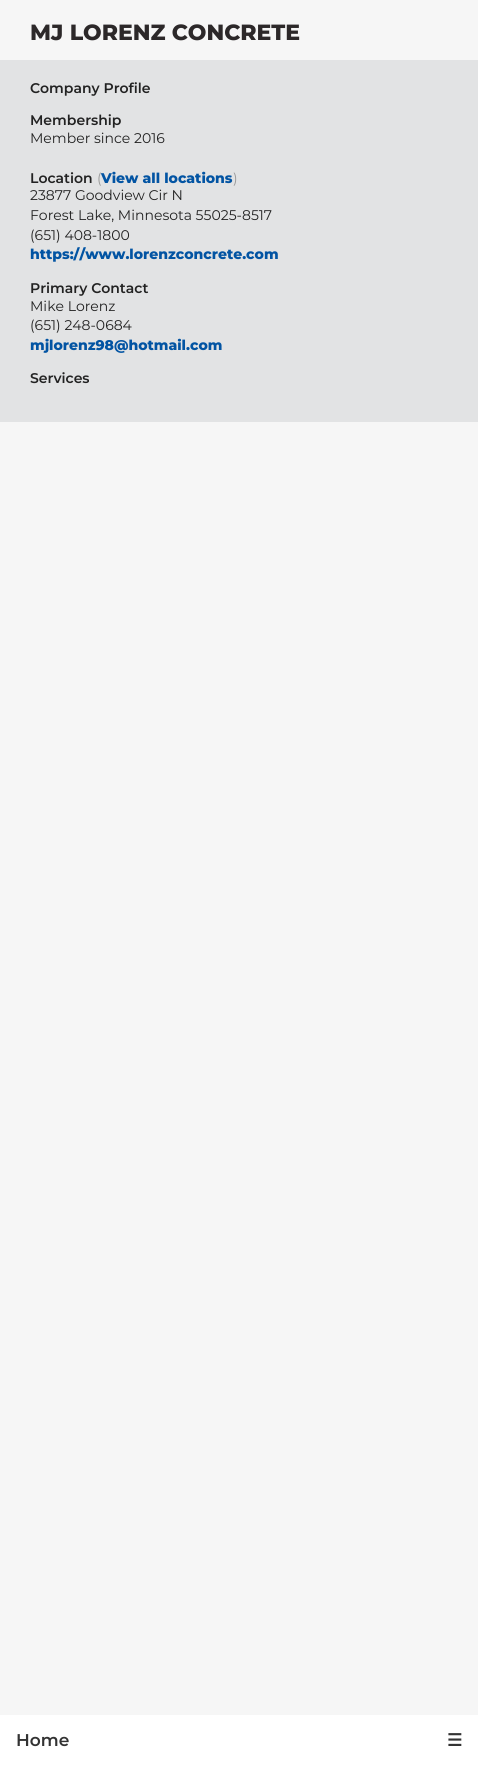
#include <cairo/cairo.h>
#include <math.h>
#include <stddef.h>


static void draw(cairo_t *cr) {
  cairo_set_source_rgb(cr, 246 / 255.0, 246 / 255.0, 246 / 255.0);
  cairo_paint(cr);
  cairo_set_source_rgb(cr, 226 / 255.0, 227 / 255.0, 228 / 255.0);
  cairo_rectangle(cr, 0, 60, 478, 362);
  cairo_fill(cr);
  cairo_set_source_rgb(cr, 1, 1, 1);
  cairo_rectangle(cr, 0, 1715, 478, 52);
  cairo_fill(cr);
  cairo_select_font_face(cr, "Montserrat ExtraBold", CAIRO_FONT_SLANT_NORMAL, CAIRO_FONT_WEIGHT_NORMAL);
  cairo_set_font_size(cr, 22);
  cairo_set_source_rgb(cr, 44 / 255.0, 40 / 255.0, 41 / 255.0);
  cairo_move_to(cr, 30, 40);
  cairo_show_text(cr, "MJ LORENZ CONCRETE");
  cairo_select_font_face(cr, "Montserrat SemiBold", CAIRO_FONT_SLANT_NORMAL, CAIRO_FONT_WEIGHT_NORMAL);
  cairo_set_font_size(cr, 14);
  cairo_set_source_rgb(cr, 34 / 255.0, 34 / 255.0, 34 / 255.0);
  cairo_move_to(cr, 30, 93);
  cairo_show_text(cr, "Company Profile");
  cairo_move_to(cr, 30, 125);
  cairo_show_text(cr, "Membership");
  cairo_select_font_face(cr, "Montserrat", CAIRO_FONT_SLANT_NORMAL, CAIRO_FONT_WEIGHT_NORMAL);
  cairo_move_to(cr, 30, 143);
  cairo_show_text(cr, "Member since 2016");
  cairo_select_font_face(cr, "Montserrat SemiBold", CAIRO_FONT_SLANT_NORMAL, CAIRO_FONT_WEIGHT_NORMAL);
  cairo_move_to(cr, 30, 183);
  cairo_show_text(cr, "Location");
  cairo_select_font_face(cr, "Montserrat", CAIRO_FONT_SLANT_NORMAL, CAIRO_FONT_WEIGHT_NORMAL);
  cairo_set_source_rgb(cr, 153 / 255.0, 153 / 255.0, 153 / 255.0);
  cairo_move_to(cr, 97, 183);
  cairo_show_text(cr, "(");
  cairo_select_font_face(cr, "Montserrat ExtraBold", CAIRO_FONT_SLANT_NORMAL, CAIRO_FONT_WEIGHT_NORMAL);
  cairo_set_source_rgb(cr, 2 / 255.0, 84 / 255.0, 163 / 255.0);
  cairo_move_to(cr, 101, 183);
  cairo_show_text(cr, "View all locations");
  cairo_select_font_face(cr, "Montserrat", CAIRO_FONT_SLANT_NORMAL, CAIRO_FONT_WEIGHT_NORMAL);
  cairo_set_source_rgb(cr, 153 / 255.0, 153 / 255.0, 153 / 255.0);
  cairo_move_to(cr, 233, 183);
  cairo_show_text(cr, ")");
  cairo_set_source_rgb(cr, 34 / 255.0, 34 / 255.0, 34 / 255.0);
  cairo_move_to(cr, 30, 200);
  cairo_show_text(cr, "23877 Goodview Cir N");
  cairo_move_to(cr, 30, 220);
  cairo_show_text(cr, "Forest Lake, Minnesota 55025-8517");
  cairo_move_to(cr, 30, 240);
  cairo_show_text(cr, "(651) 408-1800");
  cairo_select_font_face(cr, "Montserrat ExtraBold", CAIRO_FONT_SLANT_NORMAL, CAIRO_FONT_WEIGHT_NORMAL);
  cairo_set_source_rgb(cr, 2 / 255.0, 84 / 255.0, 163 / 255.0);
  cairo_move_to(cr, 30, 259);
  cairo_show_text(cr, "https://www.lorenzconcrete.com");
  cairo_select_font_face(cr, "Montserrat SemiBold", CAIRO_FONT_SLANT_NORMAL, CAIRO_FONT_WEIGHT_NORMAL);
  cairo_set_source_rgb(cr, 34 / 255.0, 34 / 255.0, 34 / 255.0);
  cairo_move_to(cr, 30, 293);
  cairo_show_text(cr, "Primary Contact");
  cairo_select_font_face(cr, "Montserrat", CAIRO_FONT_SLANT_NORMAL, CAIRO_FONT_WEIGHT_NORMAL);
  cairo_move_to(cr, 30, 311);
  cairo_show_text(cr, "Mike Lorenz");
  cairo_move_to(cr, 30, 330);
  cairo_show_text(cr, "(651) 248-0684");
  cairo_select_font_face(cr, "Montserrat ExtraBold", CAIRO_FONT_SLANT_NORMAL, CAIRO_FONT_WEIGHT_NORMAL);
  cairo_set_source_rgb(cr, 2 / 255.0, 84 / 255.0, 163 / 255.0);
  cairo_move_to(cr, 30, 350);
  cairo_show_text(cr, "mjlorenz98@hotmail.com");
  cairo_select_font_face(cr, "Montserrat SemiBold", CAIRO_FONT_SLANT_NORMAL, CAIRO_FONT_WEIGHT_NORMAL);
  cairo_set_source_rgb(cr, 34 / 255.0, 34 / 255.0, 34 / 255.0);
  cairo_move_to(cr, 30, 383);
  cairo_show_text(cr, "Services");
  cairo_set_font_size(cr, 17);
  cairo_set_source_rgb(cr, 51 / 255.0, 51 / 255.0, 51 / 255.0);
  cairo_move_to(cr, 16, 1746);
  cairo_show_text(cr, "Home");
  cairo_select_font_face(cr, "DejaVu Sans", CAIRO_FONT_SLANT_NORMAL, CAIRO_FONT_WEIGHT_BOLD);
  cairo_move_to(cr, 447, 1746);
  cairo_show_text(cr, "☰");
}

int main(void) {
  cairo_surface_t *surface = cairo_image_surface_create(CAIRO_FORMAT_RGB24, 478, 1767);
  cairo_t *cr = cairo_create(surface);
  cairo_font_options_t *options = cairo_font_options_create();
  cairo_font_options_set_hint_metrics(options, CAIRO_HINT_METRICS_OFF);
  cairo_font_options_set_hint_style(options, CAIRO_HINT_STYLE_NONE);
  cairo_set_font_options(cr, options);
  cairo_set_miter_limit(cr, 4);
  draw(cr);
  cairo_surface_write_to_png(surface, "out.png");
  cairo_font_options_destroy(options);
  cairo_destroy(cr);
  cairo_surface_destroy(surface);
  return 0;
}
